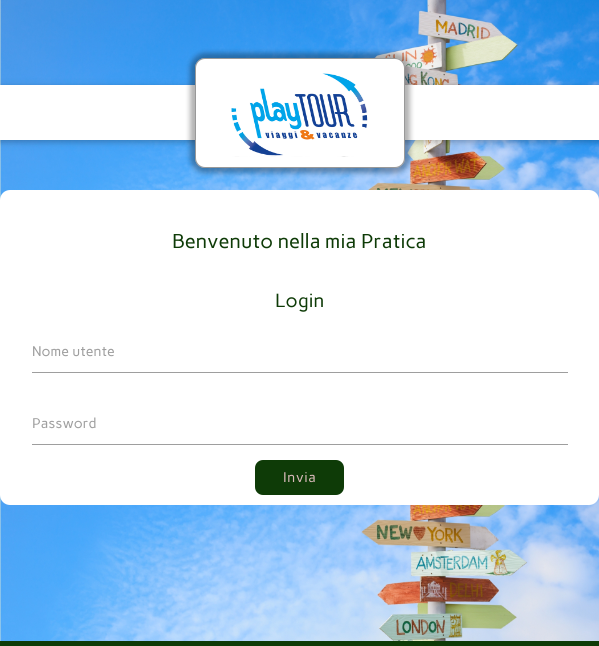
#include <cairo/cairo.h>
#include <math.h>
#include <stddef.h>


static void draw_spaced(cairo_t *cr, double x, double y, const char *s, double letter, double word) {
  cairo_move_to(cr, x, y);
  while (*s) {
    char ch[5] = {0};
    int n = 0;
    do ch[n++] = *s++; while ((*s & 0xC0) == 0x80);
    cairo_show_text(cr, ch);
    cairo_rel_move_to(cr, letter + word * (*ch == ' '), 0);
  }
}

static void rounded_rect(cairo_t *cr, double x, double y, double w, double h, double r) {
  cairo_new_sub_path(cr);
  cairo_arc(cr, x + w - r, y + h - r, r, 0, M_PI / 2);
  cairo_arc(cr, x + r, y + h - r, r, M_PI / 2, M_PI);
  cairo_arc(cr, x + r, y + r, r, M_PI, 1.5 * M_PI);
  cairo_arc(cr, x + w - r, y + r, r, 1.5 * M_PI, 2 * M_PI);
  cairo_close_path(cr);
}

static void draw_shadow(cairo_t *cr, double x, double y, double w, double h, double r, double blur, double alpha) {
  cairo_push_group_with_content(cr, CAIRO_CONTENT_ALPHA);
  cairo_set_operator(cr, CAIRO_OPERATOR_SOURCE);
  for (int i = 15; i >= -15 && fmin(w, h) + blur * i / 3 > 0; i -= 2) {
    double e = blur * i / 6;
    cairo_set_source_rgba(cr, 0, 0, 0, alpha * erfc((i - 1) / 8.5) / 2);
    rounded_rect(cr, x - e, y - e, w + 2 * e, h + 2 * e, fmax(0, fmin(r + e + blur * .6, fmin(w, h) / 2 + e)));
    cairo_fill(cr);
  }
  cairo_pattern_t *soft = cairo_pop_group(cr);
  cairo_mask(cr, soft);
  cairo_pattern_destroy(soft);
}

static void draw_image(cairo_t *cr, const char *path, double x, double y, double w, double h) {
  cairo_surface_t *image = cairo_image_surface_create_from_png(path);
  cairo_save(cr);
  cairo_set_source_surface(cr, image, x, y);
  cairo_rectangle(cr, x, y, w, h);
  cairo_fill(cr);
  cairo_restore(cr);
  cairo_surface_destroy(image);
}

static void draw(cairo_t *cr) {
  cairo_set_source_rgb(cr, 1, 1, 1);
  cairo_paint(cr);
  draw_image(cr, "images/1.png", 0, 0, 599, 641);
  cairo_set_source_rgb(cr, 14 / 255.0, 59 / 255.0, 7 / 255.0);
  cairo_rectangle(cr, 0, 641, 599, 5);
  cairo_fill(cr);
  cairo_set_source_rgb(cr, 0, 0, 0);
  draw_shadow(cr, 0, 87, 599, 55, 0, 5, 0.12);
  draw_shadow(cr, 0, 87, 599, 55, 0, 2.5, 0.16);
  cairo_set_source_rgb(cr, 1, 1, 1);
  cairo_rectangle(cr, 0, 85, 599, 55);
  cairo_fill(cr);
  cairo_set_source_rgb(cr, 0, 0, 0);
  draw_shadow(cr, 190, 53, 220, 120, 15, 2.5, 0.3);
  cairo_set_source_rgb(cr, 1, 1, 1);
  rounded_rect(cr, 195, 58, 210, 110, 10);
  cairo_fill(cr);
  rounded_rect(cr, 195.5, 58.5, 209, 109, 9.5);
  cairo_set_source_rgba(cr, 0, 0, 0, 0.4);
  cairo_set_line_width(cr, 1);
  cairo_stroke(cr);
  draw_image(cr, "images/2.png", 231, 73, 137, 84);
  cairo_set_source_rgb(cr, 1, 1, 1);
  rounded_rect(cr, 0, 190, 599, 315, 10);
  cairo_fill(cr);
  cairo_set_source_rgb(cr, 158 / 255.0, 158 / 255.0, 158 / 255.0);
  cairo_rectangle(cr, 32, 372, 536, 1);
  cairo_fill(cr);
  cairo_rectangle(cr, 32, 444, 536, 1);
  cairo_fill(cr);
  cairo_set_source_rgb(cr, 14 / 255.0, 59 / 255.0, 7 / 255.0);
  rounded_rect(cr, 255, 460, 89, 35, 8);
  cairo_fill(cr);
  cairo_select_font_face(cr, "Carme", CAIRO_FONT_SLANT_NORMAL, CAIRO_FONT_WEIGHT_NORMAL);
  cairo_set_font_size(cr, 20);
  cairo_move_to(cr, 172, 248);
  cairo_show_text(cr, "Benvenuto nella mia Pratica");
  cairo_set_font_size(cr, 19);
  cairo_move_to(cr, 275, 307);
  cairo_show_text(cr, "Login");
  cairo_set_font_size(cr, 14);
  cairo_set_source_rgb(cr, 158 / 255.0, 158 / 255.0, 158 / 255.0);
  cairo_move_to(cr, 32, 356);
  cairo_show_text(cr, "Nome utente");
  cairo_move_to(cr, 32, 428);
  cairo_show_text(cr, "Password");
  cairo_set_source_rgb(cr, 217 / 255.0, 186 / 255.0, 186 / 255.0);
  draw_spaced(cr, 283, 482, "Invia", 0.5, 0);
}

int main(void) {
  cairo_surface_t *surface = cairo_image_surface_create(CAIRO_FORMAT_RGB24, 599, 646);
  cairo_t *cr = cairo_create(surface);
  cairo_font_options_t *options = cairo_font_options_create();
  cairo_font_options_set_hint_metrics(options, CAIRO_HINT_METRICS_OFF);
  cairo_font_options_set_hint_style(options, CAIRO_HINT_STYLE_NONE);
  cairo_set_font_options(cr, options);
  cairo_set_miter_limit(cr, 4);
  draw(cr);
  cairo_surface_write_to_png(surface, "out.png");
  cairo_font_options_destroy(options);
  cairo_destroy(cr);
  cairo_surface_destroy(surface);
  return 0;
}
